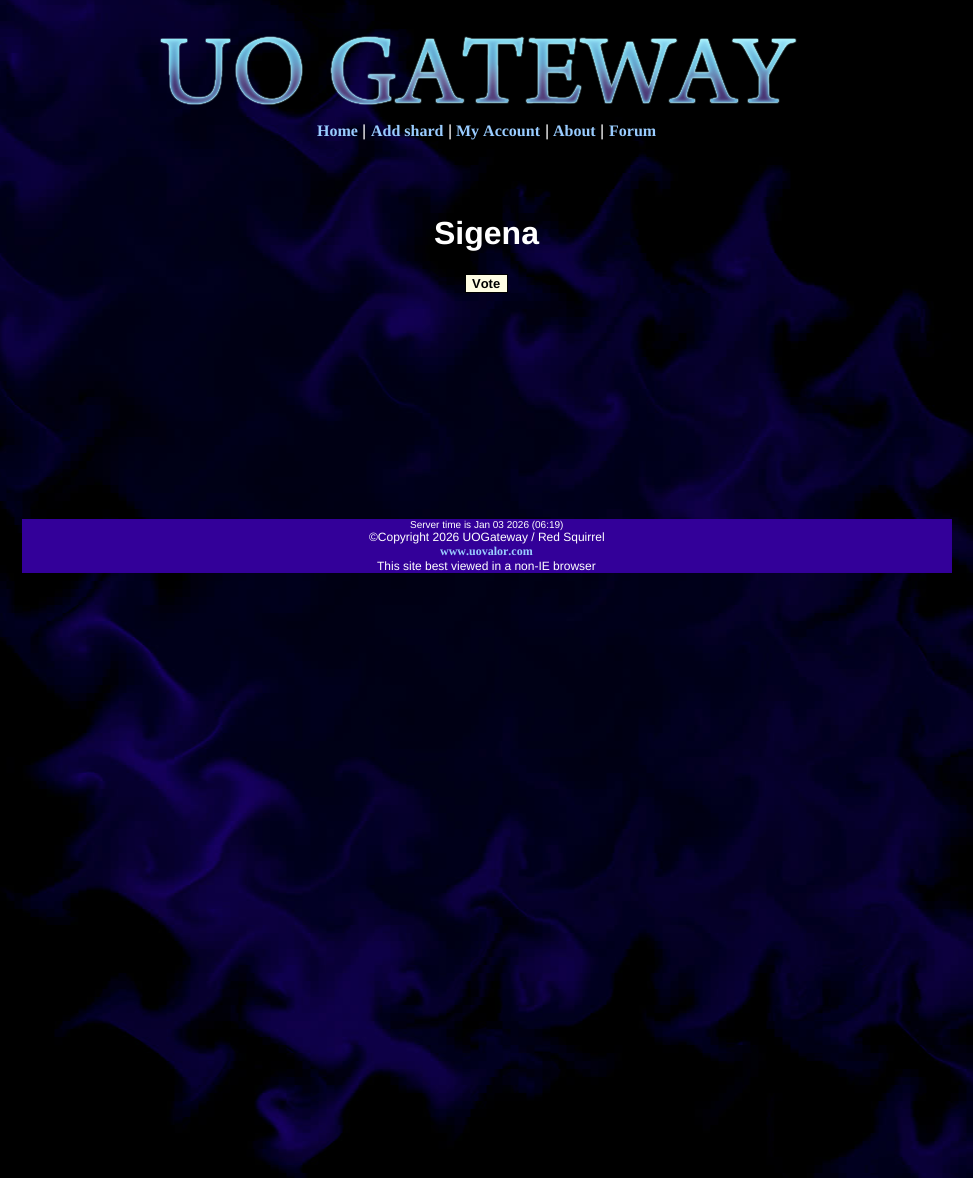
#include <cairo/cairo.h>
#include <math.h>
#include <stddef.h>


static void draw_image(cairo_t *cr, const char *path, double x, double y, double w, double h) {
  cairo_surface_t *image = cairo_image_surface_create_from_png(path);
  cairo_save(cr);
  cairo_set_source_surface(cr, image, x, y);
  cairo_rectangle(cr, x, y, w, h);
  cairo_fill(cr);
  cairo_restore(cr);
  cairo_surface_destroy(image);
}

static void draw(cairo_t *cr) {
  cairo_set_source_rgb(cr, 1, 1, 1);
  cairo_paint(cr);
  draw_image(cr, "images/1.png", 0, 0, 973, 1178);
  draw_image(cr, "images/2.png", 160, 36, 637, 69);
  cairo_set_source_rgb(cr, 1, 253 / 255.0, 228 / 255.0);
  cairo_rectangle(cr, 465.5, 274.5, 42, 18);
  cairo_fill_preserve(cr);
  cairo_set_source_rgb(cr, 0, 0, 0);
  cairo_set_line_width(cr, 1);
  cairo_stroke(cr);
  cairo_set_source_rgb(cr, 51 / 255.0, 0, 153 / 255.0);
  cairo_rectangle(cr, 22, 519, 930, 54);
  cairo_fill(cr);
  cairo_select_font_face(cr, "Liberation Serif", CAIRO_FONT_SLANT_NORMAL, CAIRO_FONT_WEIGHT_BOLD);
  cairo_set_font_size(cr, 16);
  cairo_set_source_rgb(cr, 153 / 255.0, 204 / 255.0, 1);
  cairo_move_to(cr, 317, 136);
  cairo_show_text(cr, "Home");
  cairo_select_font_face(cr, "Liberation Sans", CAIRO_FONT_SLANT_NORMAL, CAIRO_FONT_WEIGHT_NORMAL);
  cairo_set_source_rgb(cr, 1, 1, 1);
  cairo_move_to(cr, 362, 136);
  cairo_show_text(cr, "|");
  cairo_select_font_face(cr, "Liberation Serif", CAIRO_FONT_SLANT_NORMAL, CAIRO_FONT_WEIGHT_BOLD);
  cairo_set_source_rgb(cr, 153 / 255.0, 204 / 255.0, 1);
  cairo_move_to(cr, 371, 136);
  cairo_show_text(cr, "Add shard");
  cairo_select_font_face(cr, "Liberation Sans", CAIRO_FONT_SLANT_NORMAL, CAIRO_FONT_WEIGHT_NORMAL);
  cairo_set_source_rgb(cr, 1, 1, 1);
  cairo_move_to(cr, 448, 136);
  cairo_show_text(cr, "|");
  cairo_select_font_face(cr, "Liberation Serif", CAIRO_FONT_SLANT_NORMAL, CAIRO_FONT_WEIGHT_BOLD);
  cairo_set_source_rgb(cr, 153 / 255.0, 204 / 255.0, 1);
  cairo_move_to(cr, 456, 136);
  cairo_show_text(cr, "My Account");
  cairo_select_font_face(cr, "Liberation Sans", CAIRO_FONT_SLANT_NORMAL, CAIRO_FONT_WEIGHT_NORMAL);
  cairo_set_source_rgb(cr, 1, 1, 1);
  cairo_move_to(cr, 545, 136);
  cairo_show_text(cr, "|");
  cairo_select_font_face(cr, "Liberation Serif", CAIRO_FONT_SLANT_NORMAL, CAIRO_FONT_WEIGHT_BOLD);
  cairo_set_source_rgb(cr, 153 / 255.0, 204 / 255.0, 1);
  cairo_move_to(cr, 553, 136);
  cairo_show_text(cr, "About");
  cairo_select_font_face(cr, "Liberation Sans", CAIRO_FONT_SLANT_NORMAL, CAIRO_FONT_WEIGHT_NORMAL);
  cairo_set_source_rgb(cr, 1, 1, 1);
  cairo_move_to(cr, 600, 136);
  cairo_show_text(cr, "|");
  cairo_select_font_face(cr, "Liberation Serif", CAIRO_FONT_SLANT_NORMAL, CAIRO_FONT_WEIGHT_BOLD);
  cairo_set_source_rgb(cr, 153 / 255.0, 204 / 255.0, 1);
  cairo_move_to(cr, 609, 136);
  cairo_show_text(cr, "Forum");
  cairo_select_font_face(cr, "Liberation Sans", CAIRO_FONT_SLANT_NORMAL, CAIRO_FONT_WEIGHT_BOLD);
  cairo_set_font_size(cr, 32);
  cairo_set_source_rgb(cr, 1, 1, 1);
  cairo_move_to(cr, 434, 244);
  cairo_show_text(cr, "Sigena");
  cairo_set_font_size(cr, 13);
  cairo_set_source_rgb(cr, 0, 0, 0);
  cairo_move_to(cr, 472, 288);
  cairo_show_text(cr, "Vote");
  cairo_select_font_face(cr, "Liberation Sans", CAIRO_FONT_SLANT_NORMAL, CAIRO_FONT_WEIGHT_NORMAL);
  cairo_set_font_size(cr, 10);
  cairo_set_source_rgb(cr, 1, 1, 1);
  cairo_move_to(cr, 410, 528);
  cairo_show_text(cr, "Server time is Jan 03 2026 (06:19)");
  cairo_set_font_size(cr, 12);
  cairo_move_to(cr, 369, 541);
  cairo_show_text(cr, "©Copyright 2026 UOGateway / Red Squirrel");
  cairo_select_font_face(cr, "Liberation Serif", CAIRO_FONT_SLANT_NORMAL, CAIRO_FONT_WEIGHT_BOLD);
  cairo_set_source_rgb(cr, 153 / 255.0, 204 / 255.0, 1);
  cairo_move_to(cr, 440, 555);
  cairo_show_text(cr, "www.uovalor.com");
  cairo_select_font_face(cr, "Liberation Sans", CAIRO_FONT_SLANT_NORMAL, CAIRO_FONT_WEIGHT_NORMAL);
  cairo_set_source_rgb(cr, 1, 1, 1);
  cairo_move_to(cr, 377, 570);
  cairo_show_text(cr, "This site best viewed in a non-IE browser");
}

int main(void) {
  cairo_surface_t *surface = cairo_image_surface_create(CAIRO_FORMAT_RGB24, 973, 1178);
  cairo_t *cr = cairo_create(surface);
  cairo_font_options_t *options = cairo_font_options_create();
  cairo_font_options_set_hint_metrics(options, CAIRO_HINT_METRICS_OFF);
  cairo_font_options_set_hint_style(options, CAIRO_HINT_STYLE_NONE);
  cairo_set_font_options(cr, options);
  cairo_set_miter_limit(cr, 4);
  draw(cr);
  cairo_surface_write_to_png(surface, "out.png");
  cairo_font_options_destroy(options);
  cairo_destroy(cr);
  cairo_surface_destroy(surface);
  return 0;
}
